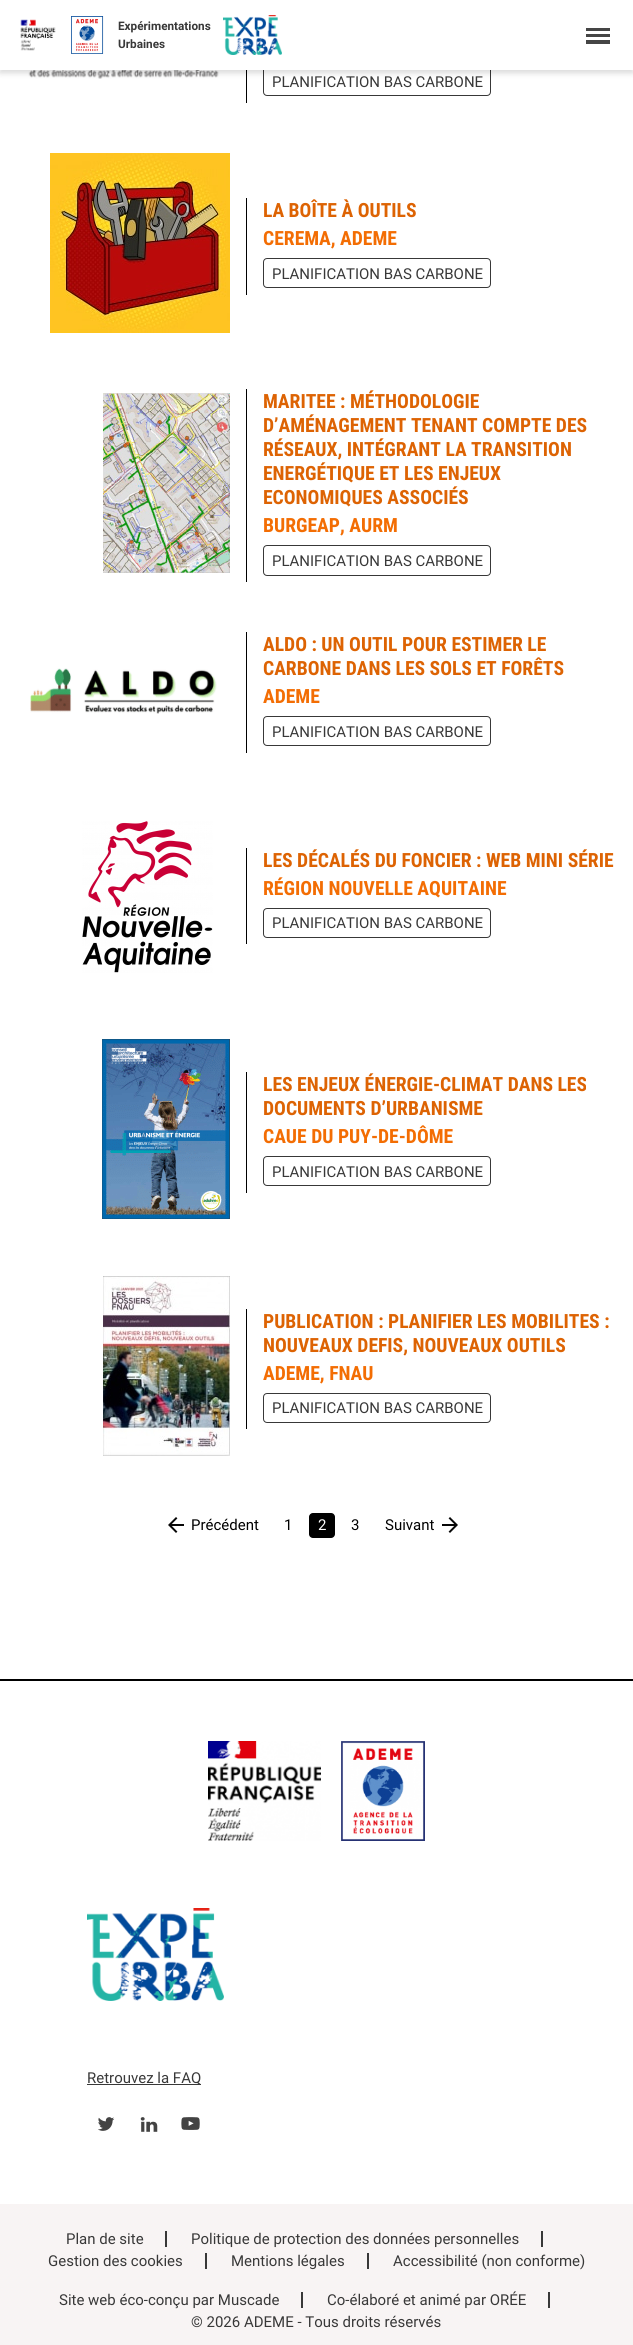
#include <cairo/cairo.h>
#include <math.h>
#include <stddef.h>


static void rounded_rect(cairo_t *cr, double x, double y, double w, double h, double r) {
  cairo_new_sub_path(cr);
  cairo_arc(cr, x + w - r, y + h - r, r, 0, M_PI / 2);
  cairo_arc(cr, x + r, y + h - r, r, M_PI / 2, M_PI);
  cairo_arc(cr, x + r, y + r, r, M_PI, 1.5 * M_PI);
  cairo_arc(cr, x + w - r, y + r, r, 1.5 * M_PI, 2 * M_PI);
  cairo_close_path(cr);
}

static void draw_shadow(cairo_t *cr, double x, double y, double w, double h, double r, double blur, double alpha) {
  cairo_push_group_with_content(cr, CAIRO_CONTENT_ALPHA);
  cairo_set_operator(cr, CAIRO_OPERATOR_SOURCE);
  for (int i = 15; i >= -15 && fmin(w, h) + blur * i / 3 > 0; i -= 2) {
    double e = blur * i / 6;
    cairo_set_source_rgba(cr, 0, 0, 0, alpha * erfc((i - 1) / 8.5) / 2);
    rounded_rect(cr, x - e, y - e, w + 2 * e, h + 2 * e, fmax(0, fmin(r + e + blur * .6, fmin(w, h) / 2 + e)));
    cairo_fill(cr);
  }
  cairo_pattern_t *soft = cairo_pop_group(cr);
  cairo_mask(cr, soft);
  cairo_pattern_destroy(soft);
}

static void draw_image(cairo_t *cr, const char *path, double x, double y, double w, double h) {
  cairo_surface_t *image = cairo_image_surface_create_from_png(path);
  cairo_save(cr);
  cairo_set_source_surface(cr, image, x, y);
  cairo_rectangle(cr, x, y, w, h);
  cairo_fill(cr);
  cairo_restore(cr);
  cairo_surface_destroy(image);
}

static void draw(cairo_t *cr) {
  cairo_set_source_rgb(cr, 1, 1, 1);
  cairo_paint(cr);
  draw_image(cr, "images/4.png", 21, 70, 198, 9);
  cairo_set_source_rgb(cr, 0, 0, 0);
  cairo_rectangle(cr, 246, 70, 1, 33);
  cairo_fill(cr);
  rounded_rect(cr, 263.5, 66.5, 227, 29, 3.5);
  cairo_set_source_rgb(cr, 56 / 255.0, 56 / 255.0, 56 / 255.0);
  cairo_set_line_width(cr, 1);
  cairo_stroke(cr);
  cairo_set_source_rgb(cr, 0, 0, 0);
  draw_shadow(cr, 0, 3, 633, 70, 0, 3, 0.15);
  cairo_set_source_rgb(cr, 1, 1, 1);
  cairo_rectangle(cr, 0, 0, 633, 70);
  cairo_fill(cr);
  draw_image(cr, "images/1.png", 20, 19, 36, 32);
  draw_image(cr, "images/2.png", 71, 16, 33, 38);
  draw_image(cr, "images/3.png", 223, 15, 59, 40);
  cairo_set_source_rgb(cr, 69 / 255.0, 69 / 255.0, 69 / 255.0);
  cairo_rectangle(cr, 586, 28, 24, 3);
  cairo_fill(cr);
  cairo_rectangle(cr, 586, 34, 24, 3);
  cairo_fill(cr);
  cairo_rectangle(cr, 586, 40, 24, 4);
  cairo_fill(cr);
  draw_image(cr, "images/5.png", 50, 153, 180, 180);
  cairo_set_source_rgb(cr, 0, 0, 0);
  cairo_rectangle(cr, 246, 198, 1, 97);
  cairo_fill(cr);
  rounded_rect(cr, 263.5, 258.5, 227, 29, 3.5);
  cairo_set_source_rgb(cr, 56 / 255.0, 56 / 255.0, 56 / 255.0);
  cairo_stroke(cr);
  draw_image(cr, "images/6.png", 103, 393, 127, 180);
  cairo_set_source_rgb(cr, 0, 0, 0);
  cairo_rectangle(cr, 246, 389, 1, 193);
  cairo_fill(cr);
  rounded_rect(cr, 263.5, 545.5, 227, 30, 3.5);
  cairo_set_source_rgb(cr, 56 / 255.0, 56 / 255.0, 56 / 255.0);
  cairo_stroke(cr);
  draw_image(cr, "images/7.png", 30, 668, 187, 46);
  cairo_set_source_rgb(cr, 0, 0, 0);
  cairo_rectangle(cr, 246, 632, 1, 121);
  cairo_fill(cr);
  rounded_rect(cr, 263.5, 716.5, 227, 29, 3.5);
  cairo_set_source_rgb(cr, 56 / 255.0, 56 / 255.0, 56 / 255.0);
  cairo_stroke(cr);
  draw_image(cr, "images/8.png", 82, 821, 131, 152);
  cairo_set_source_rgb(cr, 0, 0, 0);
  cairo_rectangle(cr, 246, 848, 1, 96);
  cairo_fill(cr);
  rounded_rect(cr, 263.5, 908.5, 227, 29, 3.5);
  cairo_set_source_rgb(cr, 56 / 255.0, 56 / 255.0, 56 / 255.0);
  cairo_stroke(cr);
  draw_image(cr, "images/9.png", 102, 1039, 128, 180);
  cairo_set_source_rgb(cr, 0, 0, 0);
  cairo_rectangle(cr, 246, 1072, 1, 121);
  cairo_fill(cr);
  rounded_rect(cr, 263.5, 1156.5, 227, 29, 3.5);
  cairo_set_source_rgb(cr, 56 / 255.0, 56 / 255.0, 56 / 255.0);
  cairo_stroke(cr);
  draw_image(cr, "images/10.png", 103, 1276, 127, 180);
  cairo_set_source_rgb(cr, 0, 0, 0);
  cairo_rectangle(cr, 246, 1309, 1, 120);
  cairo_fill(cr);
  rounded_rect(cr, 263.5, 1393.5, 227, 29, 3.5);
  cairo_set_source_rgb(cr, 56 / 255.0, 56 / 255.0, 56 / 255.0);
  cairo_stroke(cr);
  draw_image(cr, "images/11.png", 168, 1517, 16, 16);
  cairo_set_source_rgb(cr, 0, 0, 0);
  rounded_rect(cr, 309, 1513, 26, 25, 4);
  cairo_fill(cr);
  draw_image(cr, "images/12.png", 442, 1517, 16, 16);
  cairo_rectangle(cr, 0, 1679, 633, 2);
  cairo_fill(cr);
  draw_image(cr, "images/13.png", 208, 1741, 113, 100);
  draw_image(cr, "images/14.png", 341, 1741, 84, 100);
  draw_image(cr, "images/15.png", 87, 1908, 137, 93);
  cairo_set_source_rgb(cr, 56 / 255.0, 56 / 255.0, 56 / 255.0);
  cairo_rectangle(cr, 87, 2084, 114, 1);
  cairo_fill(cr);
  draw_image(cr, "images/16.png", 98, 2117, 17, 14);
  draw_image(cr, "images/17.png", 140, 2117, 18, 15);
  draw_image(cr, "images/18.png", 181, 2117, 19, 13);
  cairo_set_source_rgb(cr, 248 / 255.0, 244 / 255.0, 244 / 255.0);
  cairo_rectangle(cr, 0, 2204, 633, 141);
  cairo_fill(cr);
  cairo_set_source_rgb(cr, 56 / 255.0, 56 / 255.0, 56 / 255.0);
  cairo_rectangle(cr, 165, 2231, 2, 16);
  cairo_fill(cr);
  cairo_rectangle(cr, 541, 2231, 2, 16);
  cairo_fill(cr);
  cairo_rectangle(cr, 205, 2253, 2, 16);
  cairo_fill(cr);
  cairo_rectangle(cr, 367, 2253, 2, 16);
  cairo_fill(cr);
  cairo_rectangle(cr, 301, 2292, 2, 16);
  cairo_fill(cr);
  cairo_rectangle(cr, 548, 2292, 2, 16);
  cairo_fill(cr);
  cairo_select_font_face(cr, "Roboto", CAIRO_FONT_SLANT_NORMAL, CAIRO_FONT_WEIGHT_BOLD);
  cairo_set_font_size(cr, 12);
  cairo_move_to(cr, 118, 30);
  cairo_show_text(cr, "Expérimentations");
  cairo_move_to(cr, 118, 48);
  cairo_show_text(cr, "Urbaines");
  cairo_select_font_face(cr, "Roboto", CAIRO_FONT_SLANT_NORMAL, CAIRO_FONT_WEIGHT_NORMAL);
  cairo_set_font_size(cr, 15);
  cairo_move_to(cr, 272, 87);
  cairo_show_text(cr, "PLANIFICATION BAS CARBONE");
  cairo_select_font_face(cr, "Roboto Condensed", CAIRO_FONT_SLANT_NORMAL, CAIRO_FONT_WEIGHT_BOLD);
  cairo_set_font_size(cr, 20);
  cairo_set_source_rgb(cr, 221 / 255.0, 99 / 255.0, 3 / 255.0);
  cairo_move_to(cr, 263, 217);
  cairo_show_text(cr, "LA BOÎTE À OUTILS");
  cairo_set_source_rgb(cr, 243 / 255.0, 109 / 255.0, 3 / 255.0);
  cairo_move_to(cr, 263, 245);
  cairo_show_text(cr, "CEREMA, ADEME");
  cairo_select_font_face(cr, "Roboto", CAIRO_FONT_SLANT_NORMAL, CAIRO_FONT_WEIGHT_NORMAL);
  cairo_set_font_size(cr, 15);
  cairo_set_source_rgb(cr, 56 / 255.0, 56 / 255.0, 56 / 255.0);
  cairo_move_to(cr, 272, 279);
  cairo_show_text(cr, "PLANIFICATION BAS CARBONE");
  cairo_select_font_face(cr, "Roboto Condensed", CAIRO_FONT_SLANT_NORMAL, CAIRO_FONT_WEIGHT_BOLD);
  cairo_set_font_size(cr, 20);
  cairo_set_source_rgb(cr, 221 / 255.0, 99 / 255.0, 3 / 255.0);
  cairo_move_to(cr, 263, 408);
  cairo_show_text(cr, "MARITEE : MÉTHODOLOGIE");
  cairo_move_to(cr, 263, 432);
  cairo_show_text(cr, "D’AMÉNAGEMENT TENANT COMPTE DES");
  cairo_move_to(cr, 263, 456);
  cairo_show_text(cr, "RÉSEAUX, INTÉGRANT LA TRANSITION");
  cairo_move_to(cr, 263, 480);
  cairo_show_text(cr, "ENERGÉTIQUE ET LES ENJEUX");
  cairo_move_to(cr, 263, 504);
  cairo_show_text(cr, "ECONOMIQUES ASSOCIÉS");
  cairo_set_source_rgb(cr, 243 / 255.0, 109 / 255.0, 3 / 255.0);
  cairo_move_to(cr, 263, 532);
  cairo_show_text(cr, "BURGEAP, AURM");
  cairo_select_font_face(cr, "Roboto", CAIRO_FONT_SLANT_NORMAL, CAIRO_FONT_WEIGHT_NORMAL);
  cairo_set_font_size(cr, 15);
  cairo_set_source_rgb(cr, 56 / 255.0, 56 / 255.0, 56 / 255.0);
  cairo_move_to(cr, 272, 566);
  cairo_show_text(cr, "PLANIFICATION BAS CARBONE");
  cairo_select_font_face(cr, "Roboto Condensed", CAIRO_FONT_SLANT_NORMAL, CAIRO_FONT_WEIGHT_BOLD);
  cairo_set_font_size(cr, 20);
  cairo_set_source_rgb(cr, 221 / 255.0, 99 / 255.0, 3 / 255.0);
  cairo_move_to(cr, 263, 651);
  cairo_show_text(cr, "ALDO : UN OUTIL POUR ESTIMER LE");
  cairo_move_to(cr, 263, 675);
  cairo_show_text(cr, "CARBONE DANS LES SOLS ET FORÊTS");
  cairo_set_source_rgb(cr, 243 / 255.0, 109 / 255.0, 3 / 255.0);
  cairo_move_to(cr, 263, 703);
  cairo_show_text(cr, "ADEME");
  cairo_select_font_face(cr, "Roboto", CAIRO_FONT_SLANT_NORMAL, CAIRO_FONT_WEIGHT_NORMAL);
  cairo_set_font_size(cr, 15);
  cairo_set_source_rgb(cr, 56 / 255.0, 56 / 255.0, 56 / 255.0);
  cairo_move_to(cr, 272, 737);
  cairo_show_text(cr, "PLANIFICATION BAS CARBONE");
  cairo_select_font_face(cr, "Roboto Condensed", CAIRO_FONT_SLANT_NORMAL, CAIRO_FONT_WEIGHT_BOLD);
  cairo_set_font_size(cr, 20);
  cairo_set_source_rgb(cr, 221 / 255.0, 99 / 255.0, 3 / 255.0);
  cairo_move_to(cr, 263, 867);
  cairo_show_text(cr, "LES DÉCALÉS DU FONCIER : WEB MINI SÉRIE");
  cairo_set_source_rgb(cr, 243 / 255.0, 109 / 255.0, 3 / 255.0);
  cairo_move_to(cr, 263, 895);
  cairo_show_text(cr, "RÉGION NOUVELLE AQUITAINE");
  cairo_select_font_face(cr, "Roboto", CAIRO_FONT_SLANT_NORMAL, CAIRO_FONT_WEIGHT_NORMAL);
  cairo_set_font_size(cr, 15);
  cairo_set_source_rgb(cr, 56 / 255.0, 56 / 255.0, 56 / 255.0);
  cairo_move_to(cr, 272, 928);
  cairo_show_text(cr, "PLANIFICATION BAS CARBONE");
  cairo_select_font_face(cr, "Roboto Condensed", CAIRO_FONT_SLANT_NORMAL, CAIRO_FONT_WEIGHT_BOLD);
  cairo_set_font_size(cr, 20);
  cairo_set_source_rgb(cr, 221 / 255.0, 99 / 255.0, 3 / 255.0);
  cairo_move_to(cr, 263, 1091);
  cairo_show_text(cr, "LES ENJEUX ÉNERGIE-CLIMAT DANS LES");
  cairo_move_to(cr, 263, 1115);
  cairo_show_text(cr, "DOCUMENTS D’URBANISME");
  cairo_set_source_rgb(cr, 243 / 255.0, 109 / 255.0, 3 / 255.0);
  cairo_move_to(cr, 263, 1143);
  cairo_show_text(cr, "CAUE DU PUY-DE-DÔME");
  cairo_select_font_face(cr, "Roboto", CAIRO_FONT_SLANT_NORMAL, CAIRO_FONT_WEIGHT_NORMAL);
  cairo_set_font_size(cr, 15);
  cairo_set_source_rgb(cr, 56 / 255.0, 56 / 255.0, 56 / 255.0);
  cairo_move_to(cr, 272, 1177);
  cairo_show_text(cr, "PLANIFICATION BAS CARBONE");
  cairo_select_font_face(cr, "Roboto Condensed", CAIRO_FONT_SLANT_NORMAL, CAIRO_FONT_WEIGHT_BOLD);
  cairo_set_font_size(cr, 20);
  cairo_set_source_rgb(cr, 221 / 255.0, 99 / 255.0, 3 / 255.0);
  cairo_move_to(cr, 263, 1328);
  cairo_show_text(cr, "PUBLICATION : PLANIFIER LES MOBILITES :");
  cairo_move_to(cr, 263, 1352);
  cairo_show_text(cr, "NOUVEAUX DEFIS, NOUVEAUX OUTILS");
  cairo_set_source_rgb(cr, 243 / 255.0, 109 / 255.0, 3 / 255.0);
  cairo_move_to(cr, 263, 1380);
  cairo_show_text(cr, "ADEME, FNAU");
  cairo_select_font_face(cr, "Roboto", CAIRO_FONT_SLANT_NORMAL, CAIRO_FONT_WEIGHT_NORMAL);
  cairo_set_font_size(cr, 15);
  cairo_set_source_rgb(cr, 56 / 255.0, 56 / 255.0, 56 / 255.0);
  cairo_move_to(cr, 272, 1413);
  cairo_show_text(cr, "PLANIFICATION BAS CARBONE");
  cairo_set_source_rgb(cr, 0, 0, 0);
  cairo_move_to(cr, 191, 1530);
  cairo_show_text(cr, "Précédent");
  cairo_move_to(cr, 284, 1530);
  cairo_show_text(cr, "1");
  cairo_set_source_rgb(cr, 1, 1, 1);
  cairo_move_to(cr, 318, 1530);
  cairo_show_text(cr, "2");
  cairo_set_source_rgb(cr, 0, 0, 0);
  cairo_move_to(cr, 351, 1530);
  cairo_show_text(cr, "3");
  cairo_move_to(cr, 385, 1530);
  cairo_show_text(cr, "Suivant");
  cairo_set_source_rgb(cr, 56 / 255.0, 56 / 255.0, 56 / 255.0);
  cairo_move_to(cr, 87, 2083);
  cairo_show_text(cr, "Retrouvez la FAQ");
  cairo_move_to(cr, 66, 2244);
  cairo_show_text(cr, "Plan de site");
  cairo_move_to(cr, 191, 2244);
  cairo_show_text(cr, "Politique de protection des données personnelles");
  cairo_move_to(cr, 48, 2266);
  cairo_show_text(cr, "Gestion des cookies");
  cairo_move_to(cr, 231, 2266);
  cairo_show_text(cr, "Mentions légales");
  cairo_move_to(cr, 393, 2266);
  cairo_show_text(cr, "Accessibilité (non conforme)");
  cairo_move_to(cr, 59, 2305);
  cairo_show_text(cr, "Site web éco-conçu par Muscade");
  cairo_move_to(cr, 327, 2305);
  cairo_show_text(cr, "Co-élaboré et animé par ORÉE");
  cairo_move_to(cr, 191, 2327);
  cairo_show_text(cr, "© 2026 ADEME - Tous droits réservés");
}

int main(void) {
  cairo_surface_t *surface = cairo_image_surface_create(CAIRO_FORMAT_RGB24, 633, 2345);
  cairo_t *cr = cairo_create(surface);
  cairo_font_options_t *options = cairo_font_options_create();
  cairo_font_options_set_hint_metrics(options, CAIRO_HINT_METRICS_OFF);
  cairo_font_options_set_hint_style(options, CAIRO_HINT_STYLE_NONE);
  cairo_set_font_options(cr, options);
  cairo_set_miter_limit(cr, 4);
  draw(cr);
  cairo_surface_write_to_png(surface, "out.png");
  cairo_font_options_destroy(options);
  cairo_destroy(cr);
  cairo_surface_destroy(surface);
  return 0;
}
